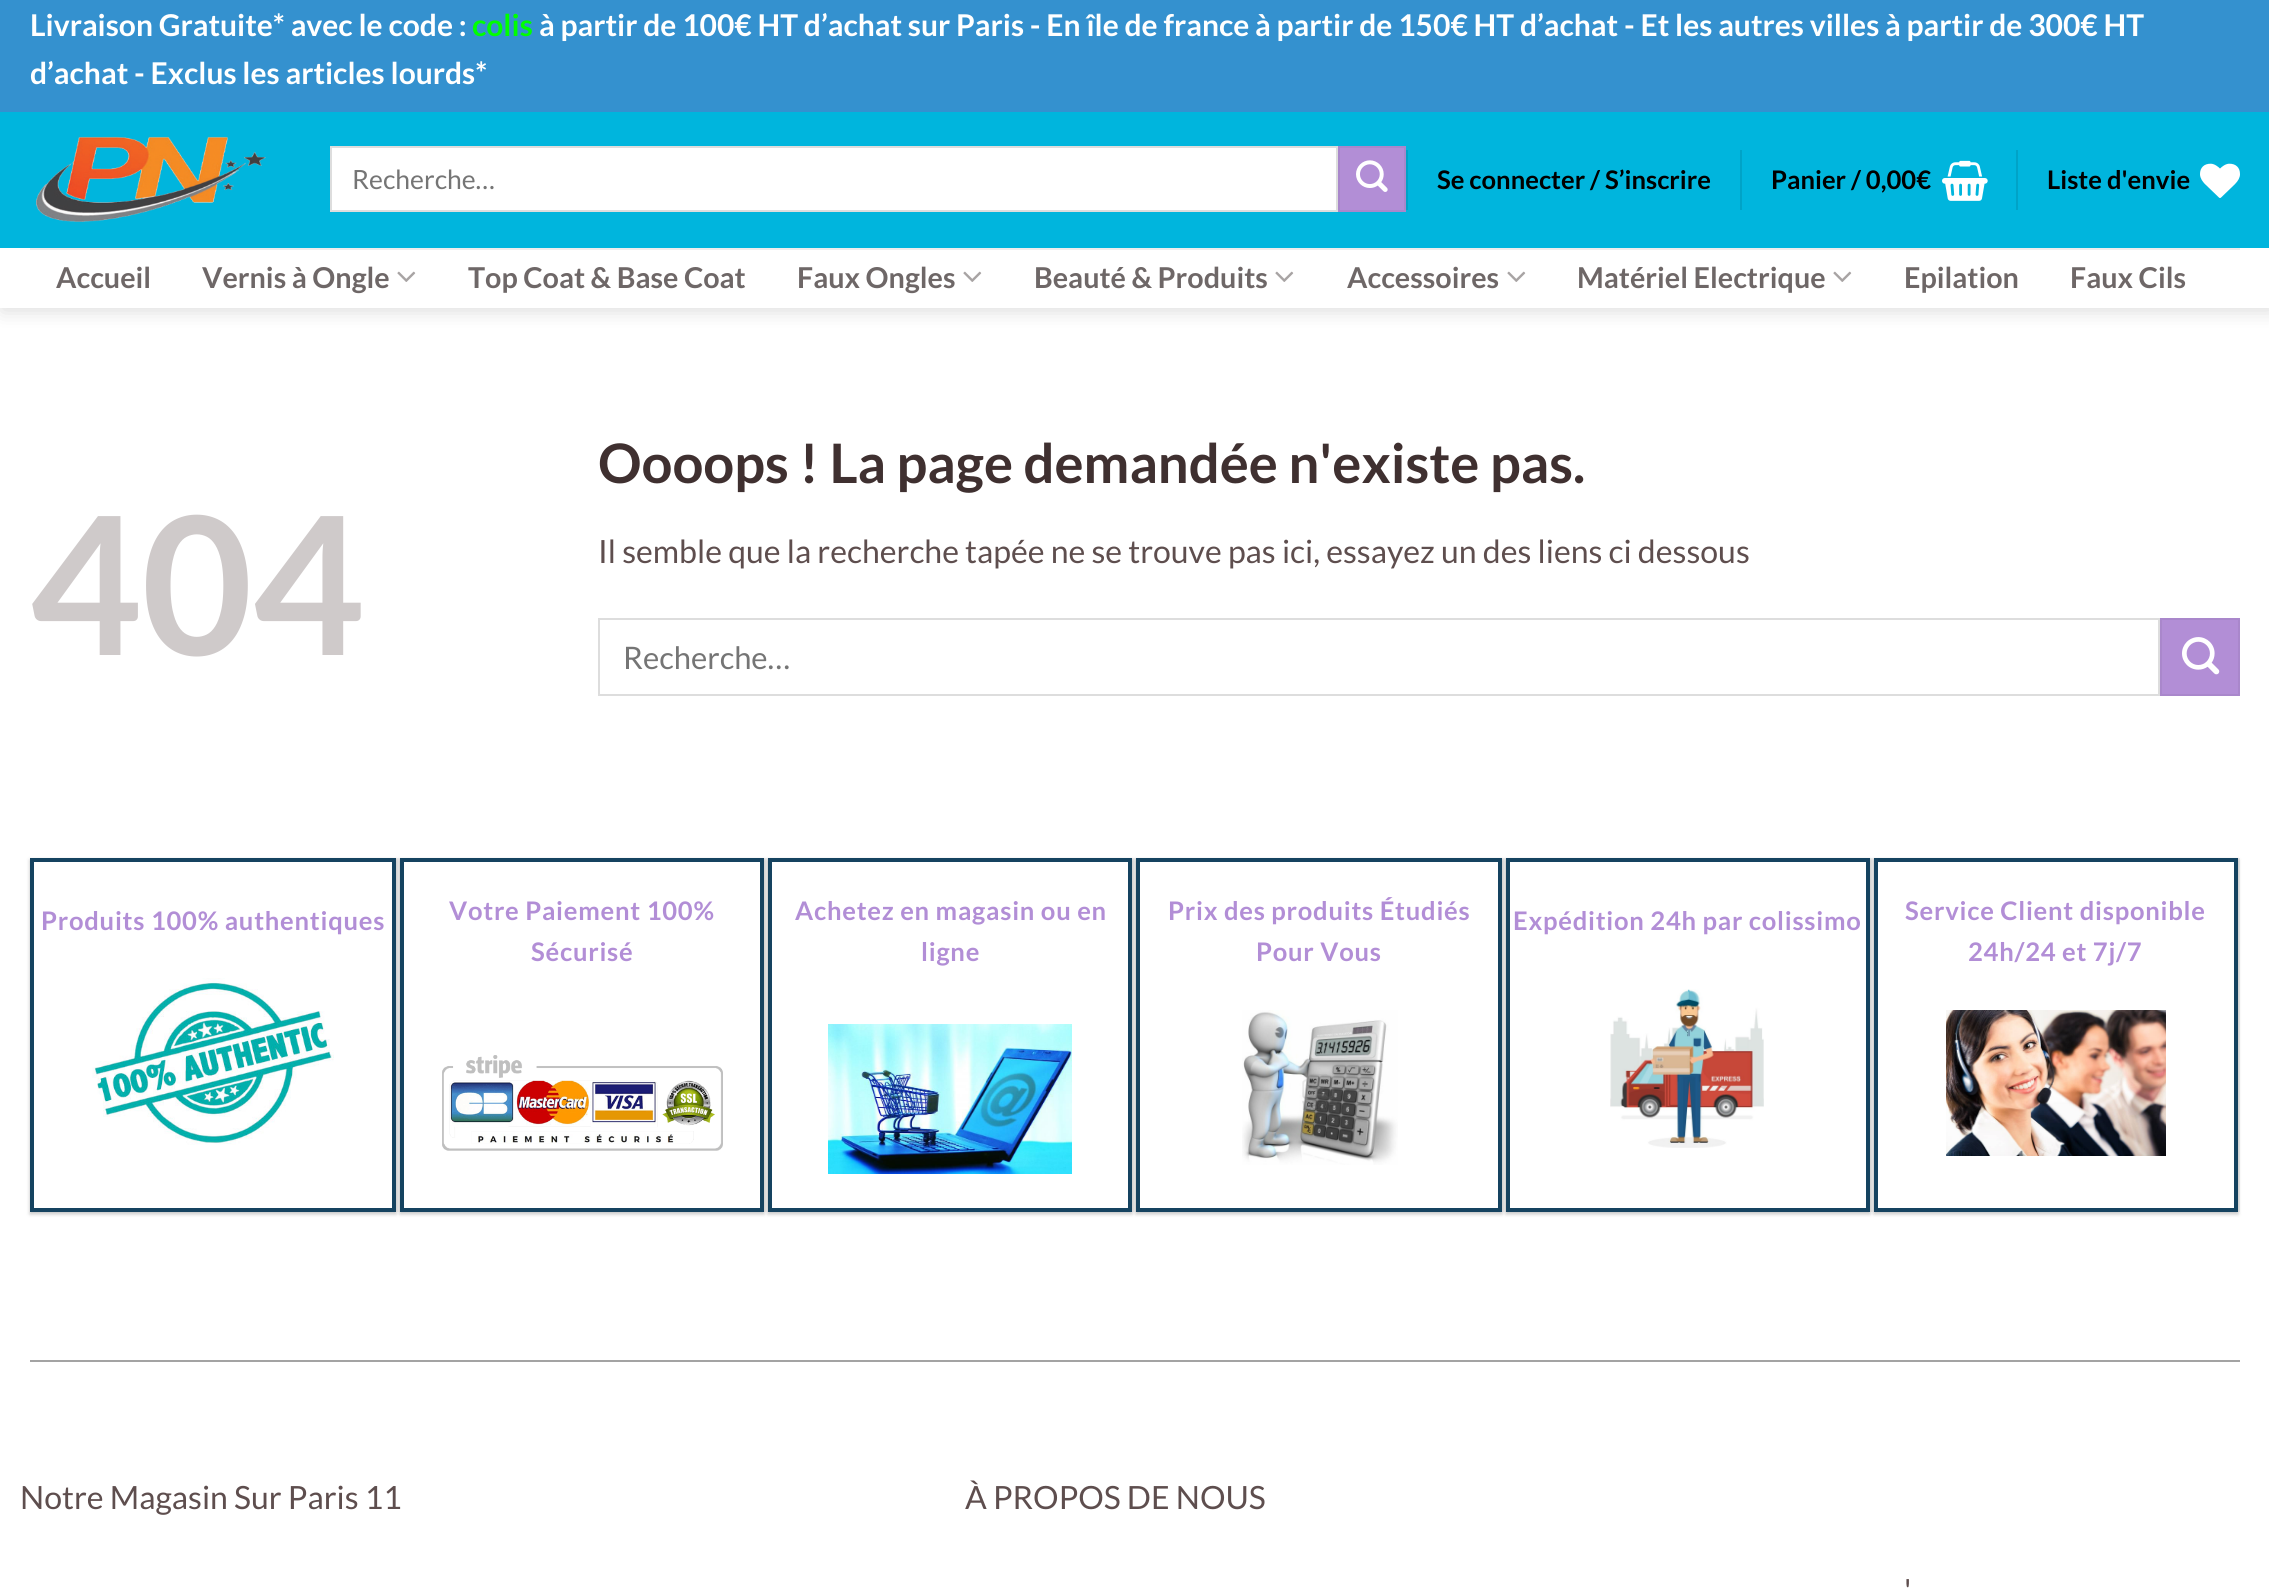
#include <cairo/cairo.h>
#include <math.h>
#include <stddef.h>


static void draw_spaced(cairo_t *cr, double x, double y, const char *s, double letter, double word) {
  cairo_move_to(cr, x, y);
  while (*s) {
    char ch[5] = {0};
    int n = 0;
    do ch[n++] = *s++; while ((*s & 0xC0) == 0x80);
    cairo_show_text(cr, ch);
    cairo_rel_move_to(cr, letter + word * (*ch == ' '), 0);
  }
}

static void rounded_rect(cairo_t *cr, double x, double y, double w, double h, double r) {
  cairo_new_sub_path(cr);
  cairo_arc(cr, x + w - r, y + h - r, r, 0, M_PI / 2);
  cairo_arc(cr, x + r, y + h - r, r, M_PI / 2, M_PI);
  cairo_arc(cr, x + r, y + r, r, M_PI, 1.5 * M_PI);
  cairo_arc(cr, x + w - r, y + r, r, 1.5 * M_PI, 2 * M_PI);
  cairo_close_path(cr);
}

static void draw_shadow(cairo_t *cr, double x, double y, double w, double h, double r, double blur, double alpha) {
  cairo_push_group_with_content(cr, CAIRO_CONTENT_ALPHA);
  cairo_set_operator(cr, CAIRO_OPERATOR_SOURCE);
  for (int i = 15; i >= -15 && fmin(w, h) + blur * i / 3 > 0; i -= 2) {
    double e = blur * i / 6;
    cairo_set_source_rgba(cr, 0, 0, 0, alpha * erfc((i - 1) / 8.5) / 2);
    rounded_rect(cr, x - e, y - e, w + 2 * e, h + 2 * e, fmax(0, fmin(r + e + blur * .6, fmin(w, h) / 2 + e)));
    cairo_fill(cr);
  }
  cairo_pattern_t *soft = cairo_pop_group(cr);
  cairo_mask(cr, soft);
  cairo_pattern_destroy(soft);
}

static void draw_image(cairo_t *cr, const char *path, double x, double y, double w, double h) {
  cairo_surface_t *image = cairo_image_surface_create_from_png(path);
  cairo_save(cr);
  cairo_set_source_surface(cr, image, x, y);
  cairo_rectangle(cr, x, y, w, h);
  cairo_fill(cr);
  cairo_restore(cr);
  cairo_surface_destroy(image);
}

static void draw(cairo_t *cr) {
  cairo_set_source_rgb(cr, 1, 1, 1);
  cairo_paint(cr);
  cairo_set_source_rgb(cr, 0, 0, 0);
  draw_shadow(cr, 2, 2, 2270, 308, 0, 10, 0.15);
  cairo_set_source_rgb(cr, 52 / 255.0, 145 / 255.0, 207 / 255.0);
  cairo_rectangle(cr, 0, 0, 2269, 112);
  cairo_fill(cr);
  cairo_set_source_rgb(cr, 0, 181 / 255.0, 221 / 255.0);
  cairo_rectangle(cr, 0, 112, 2269, 136);
  cairo_fill(cr);
  draw_image(cr, "images/1.png", 36, 136, 230, 86);
  cairo_set_source_rgb(cr, 1, 1, 1);
  cairo_rectangle(cr, 331, 147, 1006, 64);
  cairo_fill_preserve(cr);
  cairo_set_source_rgb(cr, 221 / 255.0, 221 / 255.0, 221 / 255.0);
  cairo_stroke(cr);
  cairo_set_source_rgb(cr, 178 / 255.0, 142 / 255.0, 214 / 255.0);
  cairo_rectangle(cr, 1339, 147, 66, 64);
  cairo_fill_preserve(cr);
  cairo_set_source_rgb(cr, 169 / 255.0, 135 / 255.0, 203 / 255.0);
  cairo_stroke(cr);
  draw_image(cr, "images/2.png", 1356, 160, 32, 32);
  cairo_set_source_rgb(cr, 0, 163 / 255.0, 199 / 255.0);
  cairo_rectangle(cr, 1406, 150, 2, 60);
  cairo_fill(cr);
  cairo_rectangle(cr, 1740, 150, 2, 60);
  cairo_fill(cr);
  draw_image(cr, "images/3.png", 1942, 160, 46, 41);
  cairo_rectangle(cr, 2016, 150, 2, 60);
  cairo_fill(cr);
  draw_image(cr, "images/4.png", 2200, 163, 40, 35);
  cairo_set_source_rgb(cr, 1, 1, 1);
  cairo_rectangle(cr, 0, 248, 2269, 60);
  cairo_fill(cr);
  cairo_set_source_rgb(cr, 239 / 255.0, 237 / 255.0, 237 / 255.0);
  cairo_rectangle(cr, 30, 248, 2210, 2);
  cairo_fill(cr);
  draw_image(cr, "images/5.png", 397, 271, 19, 11);
  draw_image(cr, "images/5.png", 963, 271, 19, 11);
  draw_image(cr, "images/5.png", 1275, 271, 19, 11);
  draw_image(cr, "images/5.png", 1507, 271, 19, 11);
  draw_image(cr, "images/5.png", 1833, 271, 19, 11);
  cairo_rectangle(cr, 599, 619, 1560, 76);
  cairo_set_source_rgb(cr, 221 / 255.0, 221 / 255.0, 221 / 255.0);
  cairo_stroke(cr);
  cairo_set_source_rgb(cr, 178 / 255.0, 142 / 255.0, 214 / 255.0);
  cairo_rectangle(cr, 2161, 619, 78, 76);
  cairo_fill_preserve(cr);
  cairo_set_source_rgb(cr, 169 / 255.0, 135 / 255.0, 203 / 255.0);
  cairo_stroke(cr);
  draw_image(cr, "images/6.png", 2182, 637, 38, 38);
  cairo_set_source_rgb(cr, 236 / 255.0, 236 / 255.0, 236 / 255.0);
  cairo_rectangle(cr, 396, 858, 2, 354);
  cairo_fill(cr);
  cairo_save(cr);
  cairo_set_fill_rule(cr, CAIRO_FILL_RULE_EVEN_ODD);
  cairo_new_path(cr);
  cairo_move_to(cr, 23, 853);
  cairo_line_to(cr, 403, 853);
  cairo_line_to(cr, 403, 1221);
  cairo_line_to(cr, 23, 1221);
  cairo_close_path(cr);
  cairo_move_to(cr, 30, 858);
  cairo_line_to(cr, 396, 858);
  cairo_line_to(cr, 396, 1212);
  cairo_line_to(cr, 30, 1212);
  cairo_close_path(cr);
  cairo_clip(cr);
  cairo_set_source_rgb(cr, 0, 0, 0);
  draw_shadow(cr, 30, 860, 366, 354, 0, 2, 0.24);
  cairo_restore(cr);
  cairo_rectangle(cr, 32, 860, 362, 350);
  cairo_set_source_rgb(cr, 21 / 255.0, 67 / 255.0, 96 / 255.0);
  cairo_set_line_width(cr, 4);
  cairo_stroke(cr);
  draw_image(cr, "images/7.png", 92, 978, 242, 167);
  cairo_set_source_rgb(cr, 236 / 255.0, 236 / 255.0, 236 / 255.0);
  cairo_rectangle(cr, 764, 858, 2, 354);
  cairo_fill(cr);
  cairo_rectangle(cr, 398, 858, 2, 354);
  cairo_fill(cr);
  cairo_save(cr);
  cairo_set_fill_rule(cr, CAIRO_FILL_RULE_EVEN_ODD);
  cairo_new_path(cr);
  cairo_move_to(cr, 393, 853);
  cairo_line_to(cr, 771, 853);
  cairo_line_to(cr, 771, 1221);
  cairo_line_to(cr, 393, 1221);
  cairo_close_path(cr);
  cairo_move_to(cr, 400, 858);
  cairo_line_to(cr, 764, 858);
  cairo_line_to(cr, 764, 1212);
  cairo_line_to(cr, 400, 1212);
  cairo_close_path(cr);
  cairo_clip(cr);
  cairo_set_source_rgb(cr, 0, 0, 0);
  draw_shadow(cr, 400, 860, 364, 354, 0, 2, 0.24);
  cairo_restore(cr);
  cairo_rectangle(cr, 402, 860, 360, 350);
  cairo_set_source_rgb(cr, 21 / 255.0, 67 / 255.0, 96 / 255.0);
  cairo_stroke(cr);
  draw_image(cr, "images/8.png", 442, 1055, 281, 96);
  cairo_set_source_rgb(cr, 236 / 255.0, 236 / 255.0, 236 / 255.0);
  cairo_rectangle(cr, 1132, 858, 2, 354);
  cairo_fill(cr);
  cairo_rectangle(cr, 766, 858, 2, 354);
  cairo_fill(cr);
  cairo_save(cr);
  cairo_set_fill_rule(cr, CAIRO_FILL_RULE_EVEN_ODD);
  cairo_new_path(cr);
  cairo_move_to(cr, 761, 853);
  cairo_line_to(cr, 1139, 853);
  cairo_line_to(cr, 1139, 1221);
  cairo_line_to(cr, 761, 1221);
  cairo_close_path(cr);
  cairo_move_to(cr, 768, 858);
  cairo_line_to(cr, 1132, 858);
  cairo_line_to(cr, 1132, 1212);
  cairo_line_to(cr, 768, 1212);
  cairo_close_path(cr);
  cairo_clip(cr);
  cairo_set_source_rgb(cr, 0, 0, 0);
  draw_shadow(cr, 768, 860, 364, 354, 0, 2, 0.24);
  cairo_restore(cr);
  cairo_rectangle(cr, 770, 860, 360, 350);
  cairo_set_source_rgb(cr, 21 / 255.0, 67 / 255.0, 96 / 255.0);
  cairo_stroke(cr);
  draw_image(cr, "images/9.png", 828, 1024, 244, 150);
  cairo_set_source_rgb(cr, 236 / 255.0, 236 / 255.0, 236 / 255.0);
  cairo_rectangle(cr, 1502, 858, 2, 354);
  cairo_fill(cr);
  cairo_rectangle(cr, 1134, 858, 2, 354);
  cairo_fill(cr);
  cairo_save(cr);
  cairo_set_fill_rule(cr, CAIRO_FILL_RULE_EVEN_ODD);
  cairo_new_path(cr);
  cairo_move_to(cr, 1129, 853);
  cairo_line_to(cr, 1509, 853);
  cairo_line_to(cr, 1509, 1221);
  cairo_line_to(cr, 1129, 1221);
  cairo_close_path(cr);
  cairo_move_to(cr, 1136, 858);
  cairo_line_to(cr, 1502, 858);
  cairo_line_to(cr, 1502, 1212);
  cairo_line_to(cr, 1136, 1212);
  cairo_close_path(cr);
  cairo_clip(cr);
  cairo_set_source_rgb(cr, 0, 0, 0);
  draw_shadow(cr, 1136, 860, 366, 354, 0, 2, 0.24);
  cairo_restore(cr);
  cairo_rectangle(cr, 1138, 860, 362, 350);
  cairo_set_source_rgb(cr, 21 / 255.0, 67 / 255.0, 96 / 255.0);
  cairo_stroke(cr);
  draw_image(cr, "images/10.png", 1242, 1010, 156, 155);
  cairo_set_source_rgb(cr, 236 / 255.0, 236 / 255.0, 236 / 255.0);
  cairo_rectangle(cr, 1870, 858, 2, 354);
  cairo_fill(cr);
  cairo_rectangle(cr, 1504, 858, 2, 354);
  cairo_fill(cr);
  cairo_save(cr);
  cairo_set_fill_rule(cr, CAIRO_FILL_RULE_EVEN_ODD);
  cairo_new_path(cr);
  cairo_move_to(cr, 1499, 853);
  cairo_line_to(cr, 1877, 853);
  cairo_line_to(cr, 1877, 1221);
  cairo_line_to(cr, 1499, 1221);
  cairo_close_path(cr);
  cairo_move_to(cr, 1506, 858);
  cairo_line_to(cr, 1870, 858);
  cairo_line_to(cr, 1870, 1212);
  cairo_line_to(cr, 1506, 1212);
  cairo_close_path(cr);
  cairo_clip(cr);
  cairo_set_source_rgb(cr, 0, 0, 0);
  draw_shadow(cr, 1506, 860, 364, 354, 0, 2, 0.24);
  cairo_restore(cr);
  cairo_rectangle(cr, 1508, 860, 360, 350);
  cairo_set_source_rgb(cr, 21 / 255.0, 67 / 255.0, 96 / 255.0);
  cairo_stroke(cr);
  draw_image(cr, "images/11.png", 1610, 989, 154, 159);
  cairo_set_source_rgb(cr, 236 / 255.0, 236 / 255.0, 236 / 255.0);
  cairo_rectangle(cr, 2238, 858, 2, 354);
  cairo_fill(cr);
  cairo_rectangle(cr, 1872, 858, 2, 354);
  cairo_fill(cr);
  cairo_save(cr);
  cairo_set_fill_rule(cr, CAIRO_FILL_RULE_EVEN_ODD);
  cairo_new_path(cr);
  cairo_move_to(cr, 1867, 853);
  cairo_line_to(cr, 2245, 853);
  cairo_line_to(cr, 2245, 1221);
  cairo_line_to(cr, 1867, 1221);
  cairo_close_path(cr);
  cairo_move_to(cr, 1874, 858);
  cairo_line_to(cr, 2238, 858);
  cairo_line_to(cr, 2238, 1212);
  cairo_line_to(cr, 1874, 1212);
  cairo_close_path(cr);
  cairo_clip(cr);
  cairo_set_source_rgb(cr, 0, 0, 0);
  draw_shadow(cr, 1874, 860, 364, 354, 0, 2, 0.24);
  cairo_restore(cr);
  cairo_rectangle(cr, 1876, 860, 360, 350);
  cairo_set_source_rgb(cr, 21 / 255.0, 67 / 255.0, 96 / 255.0);
  cairo_stroke(cr);
  draw_image(cr, "images/12.png", 1946, 1010, 220, 146);
  cairo_set_source_rgb(cr, 163 / 255.0, 163 / 255.0, 163 / 255.0);
  cairo_rectangle(cr, 30, 1360, 2210, 2);
  cairo_fill(cr);
  cairo_select_font_face(cr, "Lato", CAIRO_FONT_SLANT_NORMAL, CAIRO_FONT_WEIGHT_BOLD);
  cairo_set_font_size(cr, 30);
  cairo_set_source_rgb(cr, 1, 1, 1);
  cairo_move_to(cr, 30, 36);
  cairo_show_text(cr, "Livraison Gratuite* avec le code :");
  cairo_set_source_rgb(cr, 0, 1, 0);
  cairo_move_to(cr, 472, 36);
  cairo_show_text(cr, "colis");
  cairo_set_source_rgb(cr, 1, 1, 1);
  cairo_move_to(cr, 539, 36);
  cairo_show_text(cr, "à partir de 100€ HT d’achat sur Paris - En île de france à partir de 150€ HT d’achat - Et les autres villes à partir de 300€ HT");
  cairo_move_to(cr, 30, 84);
  cairo_show_text(cr, "d’achat - Exclus les articles lourds*");
  cairo_select_font_face(cr, "Lato", CAIRO_FONT_SLANT_NORMAL, CAIRO_FONT_WEIGHT_NORMAL);
  cairo_set_font_size(cr, 26.5);
  cairo_set_source_rgb(cr, 117 / 255.0, 117 / 255.0, 117 / 255.0);
  cairo_move_to(cr, 352, 189);
  cairo_show_text(cr, "Recherche…");
  cairo_select_font_face(cr, "Lato", CAIRO_FONT_SLANT_NORMAL, CAIRO_FONT_WEIGHT_BOLD);
  cairo_set_font_size(cr, 25.6);
  cairo_set_source_rgb(cr, 0, 0, 0);
  cairo_move_to(cr, 1437, 189);
  cairo_show_text(cr, "Se connecter / S’inscrire");
  cairo_move_to(cr, 1771, 189);
  cairo_show_text(cr, "Panier / 0,00€");
  cairo_move_to(cr, 2047, 189);
  cairo_show_text(cr, "Liste d'envie");
  cairo_set_font_size(cr, 28.75);
  cairo_set_source_rgb(cr, 110 / 255.0, 103 / 255.0, 103 / 255.0);
  cairo_move_to(cr, 56, 288);
  cairo_show_text(cr, "Accueil");
  cairo_move_to(cr, 202, 288);
  cairo_show_text(cr, "Vernis à Ongle");
  cairo_move_to(cr, 468, 288);
  cairo_show_text(cr, "Top Coat & Base Coat");
  cairo_move_to(cr, 797, 288);
  cairo_show_text(cr, "Faux Ongles");
  cairo_move_to(cr, 1034, 288);
  cairo_show_text(cr, "Beauté & Produits");
  cairo_move_to(cr, 1347, 288);
  cairo_show_text(cr, "Accessoires");
  cairo_move_to(cr, 1577, 288);
  cairo_show_text(cr, "Matériel Electrique");
  cairo_move_to(cr, 1904, 288);
  cairo_show_text(cr, "Epilation");
  cairo_move_to(cr, 2070, 288);
  cairo_show_text(cr, "Faux Cils");
  cairo_set_font_size(cr, 192);
  cairo_set_source_rgb(cr, 207 / 255.0, 202 / 255.0, 202 / 255.0);
  cairo_move_to(cr, 30, 655);
  cairo_show_text(cr, "404");
  cairo_set_font_size(cr, 54.4);
  cairo_set_source_rgb(cr, 63 / 255.0, 48 / 255.0, 48 / 255.0);
  cairo_move_to(cr, 598, 483);
  cairo_show_text(cr, "Oooops ! La page demandée n'existe pas.");
  cairo_select_font_face(cr, "Lato", CAIRO_FONT_SLANT_NORMAL, CAIRO_FONT_WEIGHT_NORMAL);
  cairo_set_font_size(cr, 32);
  cairo_set_source_rgb(cr, 94 / 255.0, 78 / 255.0, 78 / 255.0);
  cairo_move_to(cr, 598, 563);
  cairo_show_text(cr, "Il semble que la recherche tapée ne se trouve pas ici, essayez un des liens ci dessous");
  cairo_set_font_size(cr, 31);
  cairo_set_source_rgb(cr, 117 / 255.0, 117 / 255.0, 117 / 255.0);
  cairo_move_to(cr, 623, 669);
  cairo_show_text(cr, "Recherche…");
  cairo_select_font_face(cr, "Lato", CAIRO_FONT_SLANT_NORMAL, CAIRO_FONT_WEIGHT_BOLD);
  cairo_set_font_size(cr, 25.6);
  cairo_set_source_rgb(cr, 178 / 255.0, 142 / 255.0, 214 / 255.0);
  draw_spaced(cr, 41, 930, "Produits 100% authentiques", 0.75, 0);
  draw_spaced(cr, 449, 920, "Votre Paiement 100%", 0.75, 0);
  draw_spaced(cr, 531, 961, "Sécurisé", 0.75, 0);
  draw_spaced(cr, 795, 920, "Achetez en magasin ou en", 0.75, 0);
  draw_spaced(cr, 921, 961, "ligne", 0.75, 0);
  draw_spaced(cr, 1168, 920, "Prix des produits Étudiés", 0.75, 0);
  draw_spaced(cr, 1256, 961, "Pour Vous", 0.75, 0);
  draw_spaced(cr, 1513, 930, "Expédition 24h par colissimo", 0.75, 0);
  draw_spaced(cr, 1905, 920, "Service Client disponible", 0.75, 0);
  draw_spaced(cr, 1968, 961, "24h/24 et 7j/7", 0.75, 0);
  cairo_select_font_face(cr, "Lato", CAIRO_FONT_SLANT_NORMAL, CAIRO_FONT_WEIGHT_NORMAL);
  cairo_set_font_size(cr, 32);
  cairo_set_source_rgb(cr, 94 / 255.0, 78 / 255.0, 78 / 255.0);
  cairo_move_to(cr, 20, 1509);
  cairo_show_text(cr, "Notre Magasin Sur Paris 11");
  cairo_move_to(cr, 965, 1509);
  cairo_show_text(cr, "À PROPOS DE NOUS");
  cairo_move_to(cr, 1904, 1602);
  cairo_show_text(cr, "'");
}

int main(void) {
  cairo_surface_t *surface = cairo_image_surface_create(CAIRO_FORMAT_RGB24, 2269, 1595);
  cairo_t *cr = cairo_create(surface);
  cairo_font_options_t *options = cairo_font_options_create();
  cairo_font_options_set_hint_metrics(options, CAIRO_HINT_METRICS_OFF);
  cairo_font_options_set_hint_style(options, CAIRO_HINT_STYLE_NONE);
  cairo_set_font_options(cr, options);
  cairo_set_miter_limit(cr, 4);
  draw(cr);
  cairo_surface_write_to_png(surface, "out.png");
  cairo_font_options_destroy(options);
  cairo_destroy(cr);
  cairo_surface_destroy(surface);
  return 0;
}
